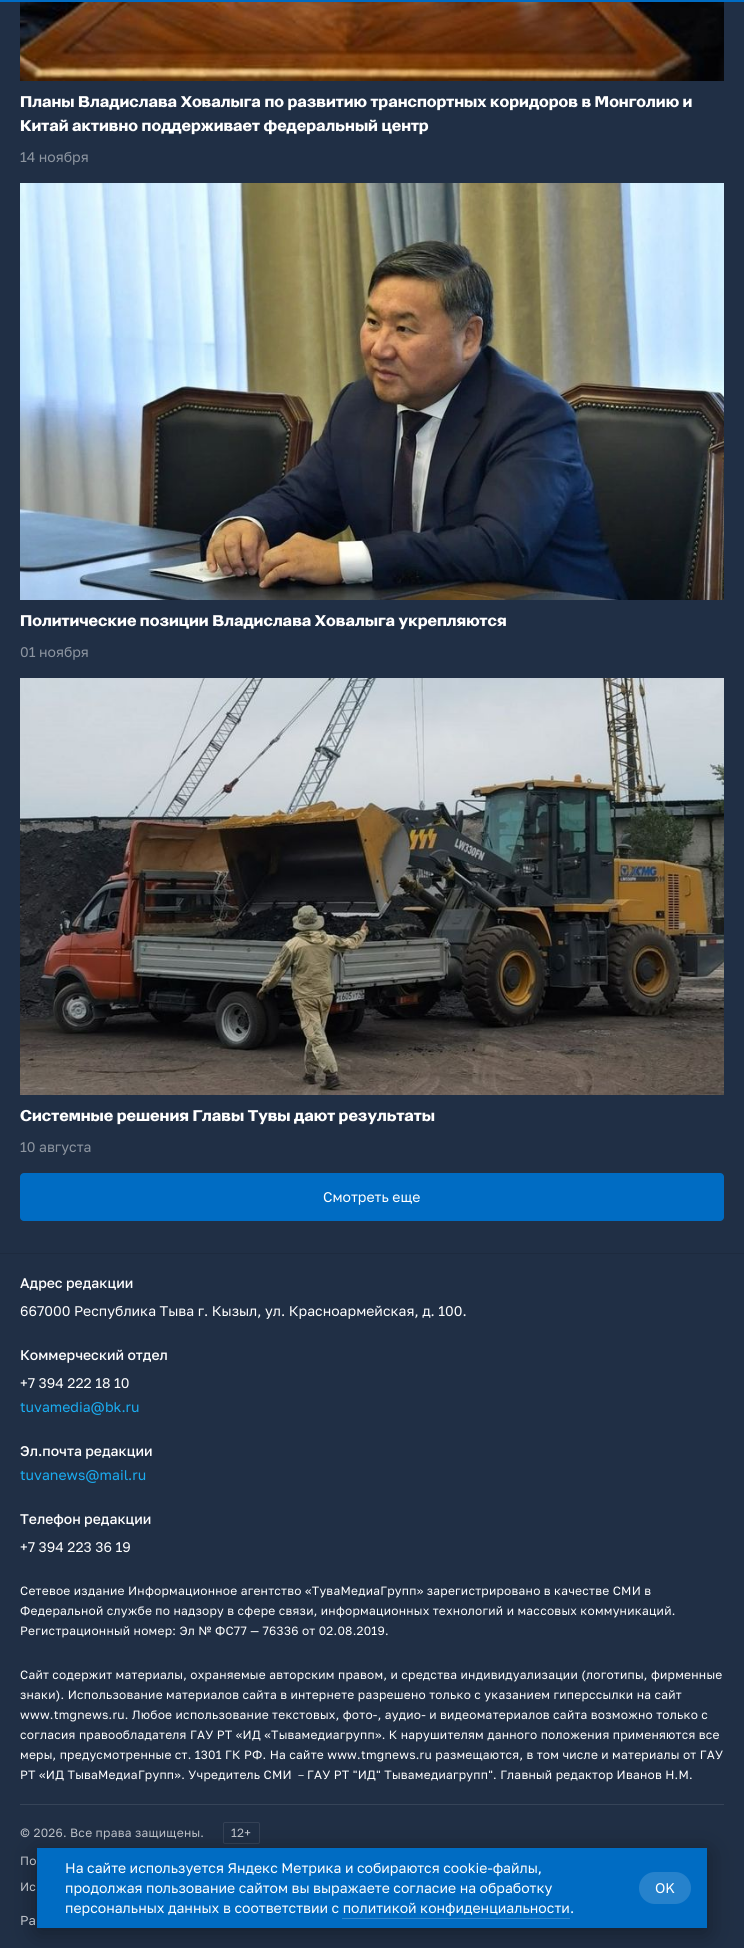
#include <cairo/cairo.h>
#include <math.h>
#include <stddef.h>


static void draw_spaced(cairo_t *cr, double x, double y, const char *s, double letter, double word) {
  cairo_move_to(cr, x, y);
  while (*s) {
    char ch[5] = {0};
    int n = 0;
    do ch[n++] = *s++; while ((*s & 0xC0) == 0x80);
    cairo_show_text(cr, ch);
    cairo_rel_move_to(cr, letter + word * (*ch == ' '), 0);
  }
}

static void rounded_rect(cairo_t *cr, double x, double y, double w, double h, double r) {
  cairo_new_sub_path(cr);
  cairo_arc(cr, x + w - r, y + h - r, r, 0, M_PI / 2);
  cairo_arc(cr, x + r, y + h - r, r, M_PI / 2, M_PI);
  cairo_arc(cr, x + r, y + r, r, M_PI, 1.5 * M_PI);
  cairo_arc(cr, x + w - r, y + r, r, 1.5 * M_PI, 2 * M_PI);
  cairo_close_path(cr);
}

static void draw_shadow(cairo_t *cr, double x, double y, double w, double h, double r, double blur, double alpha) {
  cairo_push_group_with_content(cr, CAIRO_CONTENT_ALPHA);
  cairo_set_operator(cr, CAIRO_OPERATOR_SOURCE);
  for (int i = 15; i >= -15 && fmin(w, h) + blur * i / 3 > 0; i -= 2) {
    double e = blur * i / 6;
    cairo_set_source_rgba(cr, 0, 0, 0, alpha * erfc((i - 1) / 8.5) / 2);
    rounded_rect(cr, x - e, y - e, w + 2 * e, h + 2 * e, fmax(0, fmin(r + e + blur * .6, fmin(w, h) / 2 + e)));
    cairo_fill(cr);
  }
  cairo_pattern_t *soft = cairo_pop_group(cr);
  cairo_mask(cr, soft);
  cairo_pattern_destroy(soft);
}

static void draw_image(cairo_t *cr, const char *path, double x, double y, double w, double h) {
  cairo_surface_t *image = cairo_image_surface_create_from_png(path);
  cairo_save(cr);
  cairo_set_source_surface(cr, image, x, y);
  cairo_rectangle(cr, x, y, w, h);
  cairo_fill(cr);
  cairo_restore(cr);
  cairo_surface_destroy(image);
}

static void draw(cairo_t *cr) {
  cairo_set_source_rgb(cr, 32 / 255.0, 47 / 255.0, 69 / 255.0);
  cairo_paint(cr);
  cairo_set_source_rgb(cr, 0, 108 / 255.0, 195 / 255.0);
  cairo_rectangle(cr, 0, 0, 744, 2);
  cairo_fill(cr);
  draw_image(cr, "images/1.png", 20, 2, 704, 79);
  draw_image(cr, "images/2.png", 20, 183, 704, 417);
  draw_image(cr, "images/3.png", 20, 678, 704, 417);
  rounded_rect(cr, 20, 1173, 704, 48, 4);
  cairo_fill(cr);
  cairo_set_source_rgb(cr, 29 / 255.0, 42 / 255.0, 62 / 255.0);
  cairo_rectangle(cr, 0, 1253, 744, 1);
  cairo_fill(cr);
  cairo_set_source_rgb(cr, 54 / 255.0, 68 / 255.0, 88 / 255.0);
  cairo_rectangle(cr, 20, 1804, 704, 1);
  cairo_fill(cr);
  rounded_rect(cr, 223.5, 1822.5, 36, 21, 1.5);
  cairo_set_source_rgb(cr, 53 / 255.0, 66 / 255.0, 86 / 255.0);
  cairo_set_line_width(cr, 1);
  cairo_stroke(cr);
  cairo_set_source_rgb(cr, 0, 0, 0);
  draw_shadow(cr, 37, 1853, 670, 80, 0, 12.5, 0.35);
  cairo_set_source_rgb(cr, 0, 108 / 255.0, 195 / 255.0);
  cairo_rectangle(cr, 37, 1848, 670, 80);
  cairo_fill(cr);
  cairo_set_source_rgb(cr, 51 / 255.0, 137 / 255.0, 207 / 255.0);
  cairo_rectangle(cr, 342, 1918, 228, 1);
  cairo_fill(cr);
  cairo_set_source_rgb(cr, 38 / 255.0, 130 / 255.0, 204 / 255.0);
  rounded_rect(cr, 639, 1872, 52, 32, 16);
  cairo_fill(cr);
  cairo_select_font_face(cr, "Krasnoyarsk", CAIRO_FONT_SLANT_NORMAL, CAIRO_FONT_WEIGHT_BOLD);
  cairo_set_font_size(cr, 16);
  cairo_set_source_rgb(cr, 1, 1, 1);
  cairo_move_to(cr, 20, 107);
  cairo_show_text(cr, "Планы Владислава Ховалыга по развитию транспортных коридоров в Монголию и");
  cairo_move_to(cr, 20, 131);
  cairo_show_text(cr, "Китай активно поддерживает федеральный центр");
  cairo_select_font_face(cr, "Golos", CAIRO_FONT_SLANT_NORMAL, CAIRO_FONT_WEIGHT_NORMAL);
  cairo_set_font_size(cr, 14);
  cairo_set_source_rgb(cr, 141 / 255.0, 149 / 255.0, 160 / 255.0);
  cairo_move_to(cr, 20, 162);
  cairo_show_text(cr, "14 ноября");
  cairo_select_font_face(cr, "Krasnoyarsk", CAIRO_FONT_SLANT_NORMAL, CAIRO_FONT_WEIGHT_BOLD);
  cairo_set_font_size(cr, 16);
  cairo_set_source_rgb(cr, 1, 1, 1);
  cairo_move_to(cr, 20, 626);
  cairo_show_text(cr, "Политические позиции Владислава Ховалыга укрепляются");
  cairo_select_font_face(cr, "Golos", CAIRO_FONT_SLANT_NORMAL, CAIRO_FONT_WEIGHT_NORMAL);
  cairo_set_font_size(cr, 14);
  cairo_set_source_rgb(cr, 141 / 255.0, 149 / 255.0, 160 / 255.0);
  cairo_move_to(cr, 20, 657);
  cairo_show_text(cr, "01 ноября");
  cairo_select_font_face(cr, "Krasnoyarsk", CAIRO_FONT_SLANT_NORMAL, CAIRO_FONT_WEIGHT_BOLD);
  cairo_set_font_size(cr, 16);
  cairo_set_source_rgb(cr, 1, 1, 1);
  cairo_move_to(cr, 20, 1121);
  cairo_show_text(cr, "Системные решения Главы Тувы дают результаты");
  cairo_select_font_face(cr, "Golos", CAIRO_FONT_SLANT_NORMAL, CAIRO_FONT_WEIGHT_NORMAL);
  cairo_set_font_size(cr, 14);
  cairo_set_source_rgb(cr, 141 / 255.0, 149 / 255.0, 160 / 255.0);
  cairo_move_to(cr, 20, 1152);
  cairo_show_text(cr, "10 августа");
  cairo_set_source_rgb(cr, 1, 1, 1);
  cairo_move_to(cr, 323, 1202);
  cairo_show_text(cr, "Смотреть еще");
  cairo_select_font_face(cr, "Golos Medium", CAIRO_FONT_SLANT_NORMAL, CAIRO_FONT_WEIGHT_NORMAL);
  cairo_move_to(cr, 20, 1288);
  cairo_show_text(cr, "Адрес редакции");
  cairo_select_font_face(cr, "Golos", CAIRO_FONT_SLANT_NORMAL, CAIRO_FONT_WEIGHT_NORMAL);
  cairo_move_to(cr, 20, 1316);
  cairo_show_text(cr, "667000 Республика Тыва г. Кызыл, ул. Красноармейская, д. 100.");
  cairo_select_font_face(cr, "Golos Medium", CAIRO_FONT_SLANT_NORMAL, CAIRO_FONT_WEIGHT_NORMAL);
  cairo_move_to(cr, 20, 1360);
  cairo_show_text(cr, "Коммерческий отдел");
  cairo_select_font_face(cr, "Golos", CAIRO_FONT_SLANT_NORMAL, CAIRO_FONT_WEIGHT_NORMAL);
  cairo_move_to(cr, 20, 1388);
  cairo_show_text(cr, "+7 394 222 18 10");
  cairo_set_source_rgb(cr, 26 / 255.0, 173 / 255.0, 242 / 255.0);
  cairo_move_to(cr, 20, 1412);
  cairo_show_text(cr, "tuvamedia@bk.ru");
  cairo_select_font_face(cr, "Golos Medium", CAIRO_FONT_SLANT_NORMAL, CAIRO_FONT_WEIGHT_NORMAL);
  cairo_set_source_rgb(cr, 1, 1, 1);
  cairo_move_to(cr, 20, 1456);
  cairo_show_text(cr, "Эл.почта редакции");
  cairo_select_font_face(cr, "Golos", CAIRO_FONT_SLANT_NORMAL, CAIRO_FONT_WEIGHT_NORMAL);
  cairo_set_source_rgb(cr, 26 / 255.0, 173 / 255.0, 242 / 255.0);
  cairo_move_to(cr, 20, 1480);
  cairo_show_text(cr, "tuvanews@mail.ru");
  cairo_select_font_face(cr, "Golos Medium", CAIRO_FONT_SLANT_NORMAL, CAIRO_FONT_WEIGHT_NORMAL);
  cairo_set_source_rgb(cr, 1, 1, 1);
  cairo_move_to(cr, 20, 1524);
  cairo_show_text(cr, "Телефон редакции");
  cairo_select_font_face(cr, "Golos", CAIRO_FONT_SLANT_NORMAL, CAIRO_FONT_WEIGHT_NORMAL);
  cairo_move_to(cr, 20, 1552);
  cairo_show_text(cr, "+7 394 223 36 19");
  cairo_set_font_size(cr, 12);
  draw_spaced(cr, 20, 1595, "Сетевое издание Информационное агентство «ТуваМедиаГрупп» зарегистрировано в качестве СМИ в", 0.24, 0);
  draw_spaced(cr, 20, 1615, "Федеральной службе по надзору в сфере связи, информационных технологий и массовых коммуникаций.", 0.24, 0);
  draw_spaced(cr, 20, 1635, "Регистрационный номер: Эл № ФС77 — 76336 от 02.08.2019.", 0.24, 0);
  draw_spaced(cr, 20, 1679, "Сайт содержит материалы, охраняемые авторским правом, и средства индивидуализации (логотипы, фирменные", 0.24, 0);
  draw_spaced(cr, 20, 1699, "знаки). Использование материалов сайта в интернете разрешено только с указанием гиперссылки на сайт", 0.24, 0);
  draw_spaced(cr, 20, 1719, "www.tmgnews.ru. Любое использование текстовых, фото-, аудио- и видеоматериалов сайта возможно только с", 0.24, 0);
  draw_spaced(cr, 20, 1739, "согласия правообладателя ГАУ РТ «ИД «Тывамедиагрупп». К нарушителям данного положения применяются все", 0.24, 0);
  draw_spaced(cr, 20, 1759, "меры, предусмотренные ст. 1301 ГК РФ. На сайте www.tmgnews.ru размещаются, в том числе и материалы от ГАУ", 0.24, 0);
  draw_spaced(cr, 20, 1779, "РТ «ИД ТываМедиаГрупп». Учредитель СМИ", 0.24, 0);
  cairo_select_font_face(cr, "WenQuanYi Zen Hei Medium", CAIRO_FONT_SLANT_NORMAL, CAIRO_FONT_WEIGHT_NORMAL);
  draw_spaced(cr, 295, 1779, "－", 0.24, 0);
  cairo_select_font_face(cr, "Golos", CAIRO_FONT_SLANT_NORMAL, CAIRO_FONT_WEIGHT_NORMAL);
  draw_spaced(cr, 307, 1779, "ГАУ РТ \"ИД\" Тывамедиагрупп\". Главный редактор Иванов Н.М.", 0.24, 0);
  cairo_set_source_rgb(cr, 188 / 255.0, 192 / 255.0, 199 / 255.0);
  draw_spaced(cr, 20, 1837, "© 2026. Все права защищены.", 0.24, 0);
  draw_spaced(cr, 231, 1837, "12+", 0.24, 0);
  draw_spaced(cr, 20, 1865, "По", 0.24, 0);
  draw_spaced(cr, 20, 1891, "Ис", 0.24, 0);
  cairo_set_font_size(cr, 13);
  cairo_move_to(cr, 20, 1925);
  cairo_show_text(cr, "Ра");
  cairo_set_font_size(cr, 14);
  cairo_set_source_rgb(cr, 1, 1, 1);
  cairo_move_to(cr, 65, 1873);
  cairo_show_text(cr, "На сайте используется Яндекс Метрика и собираются cookie-файлы,");
  cairo_move_to(cr, 65, 1893);
  cairo_show_text(cr, "продолжая пользование сайтом вы выражаете согласие на обработку");
  cairo_move_to(cr, 65, 1913);
  cairo_show_text(cr, "персональных данных");
  cairo_move_to(cr, 223, 1913);
  cairo_show_text(cr, "в соответствии с политикой конфиденциальности");
  cairo_move_to(cr, 570, 1913);
  cairo_show_text(cr, ".");
  cairo_move_to(cr, 655, 1893);
  cairo_show_text(cr, "OK");
}

int main(void) {
  cairo_surface_t *surface = cairo_image_surface_create(CAIRO_FORMAT_RGB24, 744, 1948);
  cairo_t *cr = cairo_create(surface);
  cairo_font_options_t *options = cairo_font_options_create();
  cairo_font_options_set_hint_metrics(options, CAIRO_HINT_METRICS_OFF);
  cairo_font_options_set_hint_style(options, CAIRO_HINT_STYLE_NONE);
  cairo_set_font_options(cr, options);
  cairo_set_miter_limit(cr, 4);
  draw(cr);
  cairo_surface_write_to_png(surface, "out.png");
  cairo_font_options_destroy(options);
  cairo_destroy(cr);
  cairo_surface_destroy(surface);
  return 0;
}
